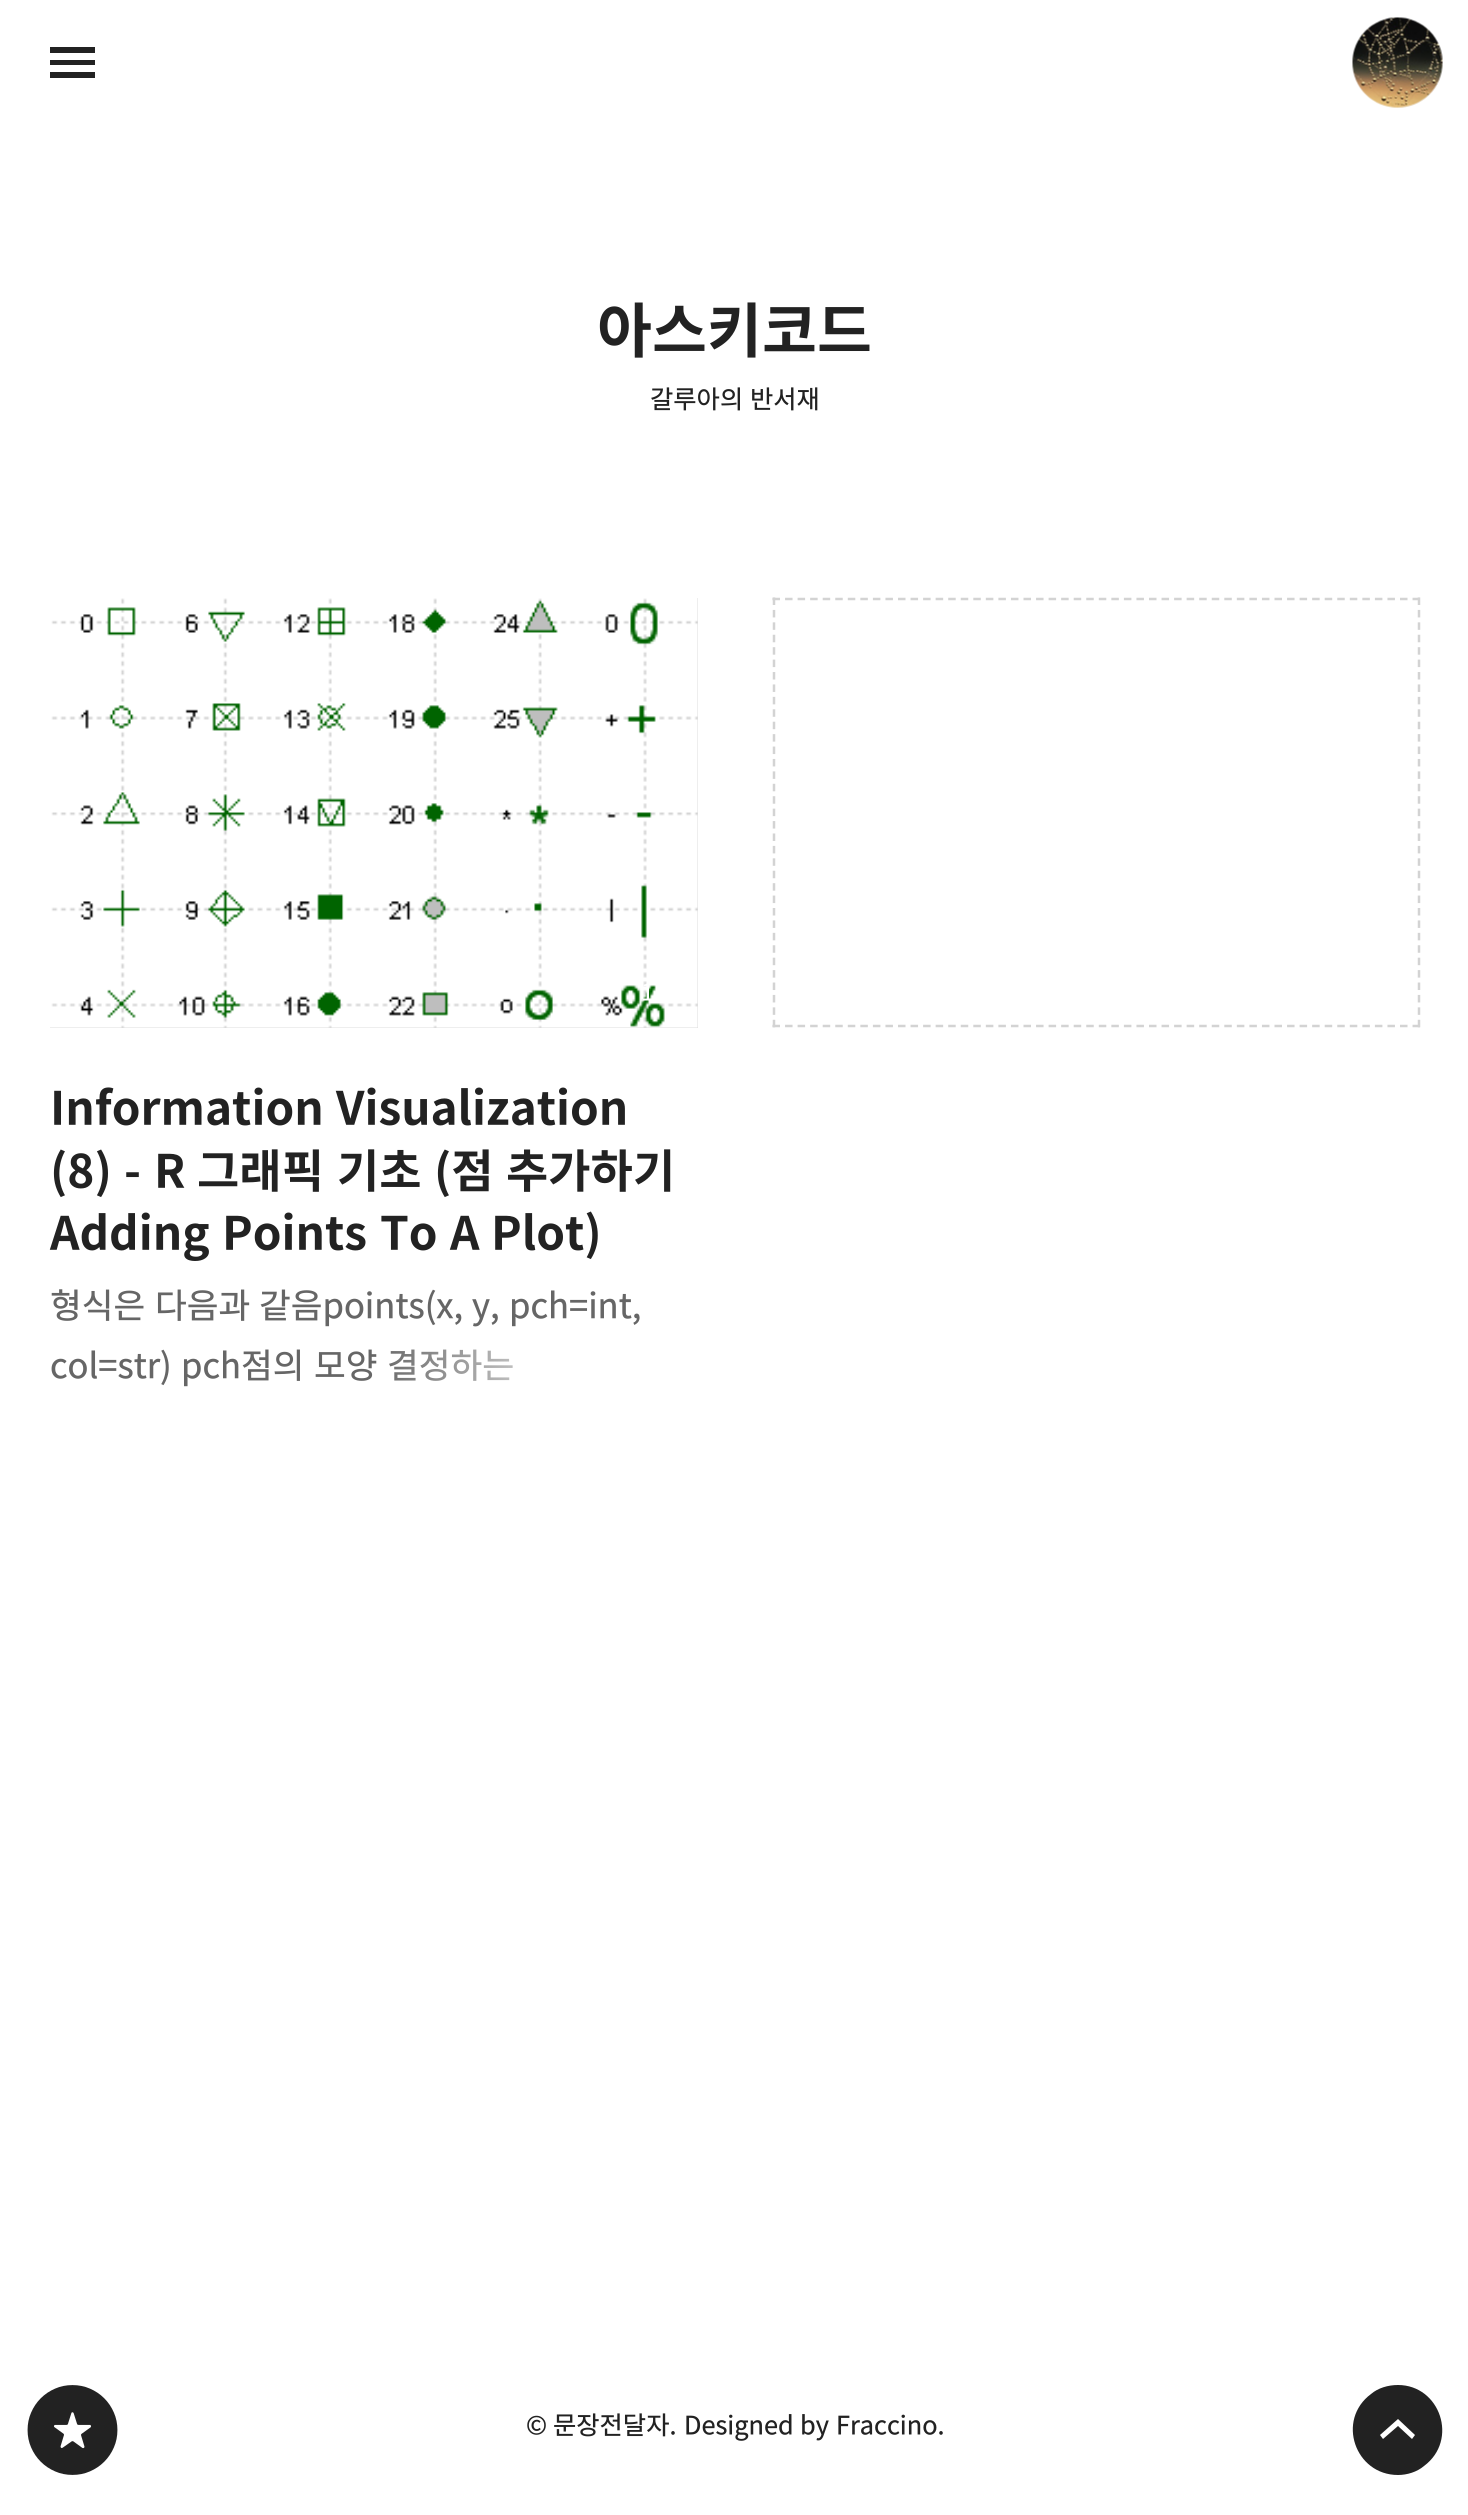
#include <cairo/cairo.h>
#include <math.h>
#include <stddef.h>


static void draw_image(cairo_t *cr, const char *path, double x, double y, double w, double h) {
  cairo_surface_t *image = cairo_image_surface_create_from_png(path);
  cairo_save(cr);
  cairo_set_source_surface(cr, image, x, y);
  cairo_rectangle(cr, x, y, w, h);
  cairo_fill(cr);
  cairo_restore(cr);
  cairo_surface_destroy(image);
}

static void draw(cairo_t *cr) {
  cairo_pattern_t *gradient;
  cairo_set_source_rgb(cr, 1, 1, 1);
  cairo_paint(cr);
  cairo_set_source_rgb(cr, 34 / 255.0, 34 / 255.0, 34 / 255.0);
  cairo_new_path(cr);
  cairo_move_to(cr, 50, 47);
  cairo_line_to(cr, 95, 47);
  cairo_line_to(cr, 95, 53);
  cairo_line_to(cr, 50, 53);
  cairo_close_path(cr);
  cairo_move_to(cr, 50, 60);
  cairo_line_to(cr, 95, 60);
  cairo_line_to(cr, 95, 65);
  cairo_line_to(cr, 50, 65);
  cairo_close_path(cr);
  cairo_move_to(cr, 50, 72);
  cairo_line_to(cr, 95, 72);
  cairo_line_to(cr, 95, 78);
  cairo_line_to(cr, 50, 78);
  cairo_close_path(cr);
  cairo_fill(cr);
  cairo_set_source_rgb(cr, 244 / 255.0, 244 / 255.0, 244 / 255.0);
  cairo_arc(cr, 1398, 63, 45, 0, 2 * M_PI);
  cairo_fill(cr);
  draw_image(cr, "images/1.png", 1352, 17, 91, 91);
  cairo_new_path(cr);
  cairo_move_to(cr, 772.5, 599);
  cairo_line_to(cr, 1420, 599);
  cairo_set_source_rgb(cr, 211 / 255.0, 211 / 255.0, 211 / 255.0);
  cairo_set_line_width(cr, 2.5);
  cairo_set_dash(cr, (double[]){7.5, 5.05}, 2, 0);
  cairo_stroke(cr);
  cairo_new_path(cr);
  cairo_move_to(cr, 1419, 597.5);
  cairo_line_to(cr, 1419, 1027.5);
  cairo_set_dash(cr, (double[]){7.5, 4.92}, 2, 0);
  cairo_stroke(cr);
  cairo_new_path(cr);
  cairo_move_to(cr, 772.5, 1026);
  cairo_line_to(cr, 1420, 1026);
  cairo_set_dash(cr, (double[]){7.5, 5.05}, 2, 0);
  cairo_stroke(cr);
  cairo_new_path(cr);
  cairo_move_to(cr, 774, 597.5);
  cairo_line_to(cr, 774, 1027.5);
  cairo_set_dash(cr, (double[]){7.5, 4.92}, 2, 0);
  cairo_stroke(cr);
  cairo_set_source_rgb(cr, 220 / 255.0, 220 / 255.0, 220 / 255.0);
  cairo_rectangle(cr, 50, 598, 648, 430);
  cairo_fill(cr);
  draw_image(cr, "images/2.png", 50, 598, 648, 430);
  draw_image(cr, "images/3.png", 27, 2385, 91, 90);
  cairo_set_source_rgb(cr, 34 / 255.0, 34 / 255.0, 34 / 255.0);
  cairo_new_path(cr);
  cairo_move_to(cr, 1398, 2385);
  cairo_curve_to(cr, 1388, 2385, 1378, 2388, 1371, 2394);
  cairo_curve_to(cr, 1336, 2420, 1355, 2475, 1398, 2475);
  cairo_curve_to(cr, 1407, 2475, 1417, 2472, 1424, 2466);
  cairo_curve_to(cr, 1459, 2440, 1440, 2385, 1398, 2385);
  cairo_close_path(cr);
  cairo_move_to(cr, 1412, 2439);
  cairo_line_to(cr, 1398, 2426);
  cairo_line_to(cr, 1383, 2439);
  cairo_line_to(cr, 1380, 2435);
  cairo_line_to(cr, 1398, 2419);
  cairo_line_to(cr, 1415, 2435);
  cairo_close_path(cr);
  cairo_fill(cr);
  cairo_select_font_face(cr, "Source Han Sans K", CAIRO_FONT_SLANT_NORMAL, CAIRO_FONT_WEIGHT_BOLD);
  cairo_set_font_size(cr, 65);
  cairo_move_to(cr, 597, 354);
  cairo_show_text(cr, "아스키코드");
  cairo_select_font_face(cr, "Source Han Sans K", CAIRO_FONT_SLANT_NORMAL, CAIRO_FONT_WEIGHT_NORMAL);
  cairo_set_font_size(cr, 27.5);
  cairo_move_to(cr, 650, 409);
  cairo_show_text(cr, "갈루아의");
  cairo_move_to(cr, 750, 409);
  cairo_show_text(cr, "반서재");
  cairo_set_font_size(cr, 25);
  cairo_set_source_rgb(cr, 1, 1, 1);
  cairo_move_to(cr, 641, 1001);
  cairo_show_text(cr, "1");
  cairo_select_font_face(cr, "Source Han Sans K", CAIRO_FONT_SLANT_NORMAL, CAIRO_FONT_WEIGHT_BOLD);
  cairo_set_font_size(cr, 50);
  cairo_set_source_rgb(cr, 34 / 255.0, 34 / 255.0, 34 / 255.0);
  cairo_move_to(cr, 50, 1126);
  cairo_show_text(cr, "Information");
  cairo_move_to(cr, 336, 1126);
  cairo_show_text(cr, "Visualization");
  cairo_move_to(cr, 50, 1189);
  cairo_show_text(cr, "(8)");
  cairo_move_to(cr, 124, 1189);
  cairo_show_text(cr, "-");
  cairo_move_to(cr, 154, 1189);
  cairo_show_text(cr, "R");
  cairo_move_to(cr, 197, 1189);
  cairo_show_text(cr, "그래픽");
  cairo_move_to(cr, 337, 1189);
  cairo_show_text(cr, "기초");
  cairo_move_to(cr, 434, 1189);
  cairo_show_text(cr, "(점");
  cairo_move_to(cr, 506, 1189);
  cairo_show_text(cr, "추가하기");
  cairo_move_to(cr, 50, 1251);
  cairo_show_text(cr, "Adding");
  cairo_move_to(cr, 222, 1251);
  cairo_show_text(cr, "Points");
  cairo_move_to(cr, 380, 1251);
  cairo_show_text(cr, "To");
  cairo_move_to(cr, 450, 1251);
  cairo_show_text(cr, "A");
  cairo_move_to(cr, 491, 1251);
  cairo_show_text(cr, "Plot)");
  cairo_select_font_face(cr, "Source Han Sans K", CAIRO_FONT_SLANT_NORMAL, CAIRO_FONT_WEIGHT_NORMAL);
  cairo_set_font_size(cr, 37.5);
  cairo_set_source_rgb(cr, 102 / 255.0, 102 / 255.0, 102 / 255.0);
  cairo_move_to(cr, 50, 1319);
  cairo_show_text(cr, "형식은");
  cairo_move_to(cr, 155, 1319);
  cairo_show_text(cr, "다음과");
  cairo_move_to(cr, 259, 1319);
  cairo_show_text(cr, "같음points(x,");
  cairo_move_to(cr, 472, 1319);
  cairo_show_text(cr, "y,");
  cairo_move_to(cr, 509, 1319);
  cairo_show_text(cr, "pch=int,");
  cairo_move_to(cr, 50, 1379);
  cairo_show_text(cr, "col=str)");
  cairo_move_to(cr, 181, 1379);
  cairo_show_text(cr, "pch점의");
  cairo_move_to(cr, 314, 1379);
  cairo_show_text(cr, "모양");
  cairo_move_to(cr, 387, 1379);
  cairo_show_text(cr, "결정하는");
  gradient = cairo_pattern_create_linear(375, 1365, 698, 1365);
  cairo_pattern_add_color_stop_rgba(gradient, 0, 1, 1, 1, 0);
  cairo_pattern_add_color_stop_rgba(gradient, 0.75, 1, 1, 1, 1);
  cairo_set_source(cr, gradient);
  cairo_pattern_destroy(gradient);
  cairo_rectangle(cr, 389, 1349, 123, 32);
  cairo_fill(cr);
  cairo_set_font_size(cr, 27.5);
  cairo_set_source_rgb(cr, 34 / 255.0, 34 / 255.0, 34 / 255.0);
  cairo_move_to(cr, 526, 2435);
  cairo_show_text(cr, "©");
  cairo_move_to(cr, 553, 2435);
  cairo_show_text(cr, "문장전달자.");
  cairo_move_to(cr, 684, 2435);
  cairo_show_text(cr, "Designed");
  cairo_move_to(cr, 800, 2435);
  cairo_show_text(cr, "by");
  cairo_move_to(cr, 836, 2435);
  cairo_show_text(cr, "Fraccino.");
}

int main(void) {
  cairo_surface_t *surface = cairo_image_surface_create(CAIRO_FORMAT_RGB24, 1468, 2515);
  cairo_t *cr = cairo_create(surface);
  cairo_font_options_t *options = cairo_font_options_create();
  cairo_font_options_set_hint_metrics(options, CAIRO_HINT_METRICS_OFF);
  cairo_font_options_set_hint_style(options, CAIRO_HINT_STYLE_NONE);
  cairo_set_font_options(cr, options);
  cairo_set_miter_limit(cr, 4);
  draw(cr);
  cairo_surface_write_to_png(surface, "out.png");
  cairo_font_options_destroy(options);
  cairo_destroy(cr);
  cairo_surface_destroy(surface);
  return 0;
}
